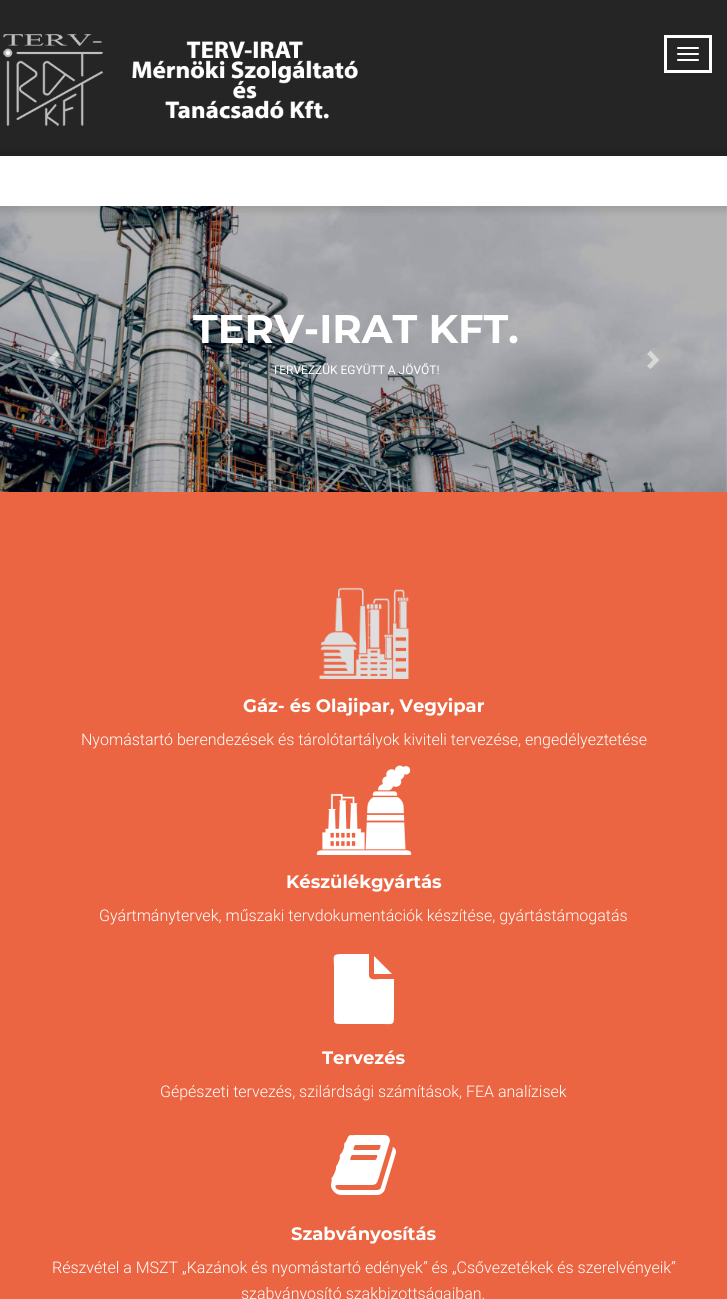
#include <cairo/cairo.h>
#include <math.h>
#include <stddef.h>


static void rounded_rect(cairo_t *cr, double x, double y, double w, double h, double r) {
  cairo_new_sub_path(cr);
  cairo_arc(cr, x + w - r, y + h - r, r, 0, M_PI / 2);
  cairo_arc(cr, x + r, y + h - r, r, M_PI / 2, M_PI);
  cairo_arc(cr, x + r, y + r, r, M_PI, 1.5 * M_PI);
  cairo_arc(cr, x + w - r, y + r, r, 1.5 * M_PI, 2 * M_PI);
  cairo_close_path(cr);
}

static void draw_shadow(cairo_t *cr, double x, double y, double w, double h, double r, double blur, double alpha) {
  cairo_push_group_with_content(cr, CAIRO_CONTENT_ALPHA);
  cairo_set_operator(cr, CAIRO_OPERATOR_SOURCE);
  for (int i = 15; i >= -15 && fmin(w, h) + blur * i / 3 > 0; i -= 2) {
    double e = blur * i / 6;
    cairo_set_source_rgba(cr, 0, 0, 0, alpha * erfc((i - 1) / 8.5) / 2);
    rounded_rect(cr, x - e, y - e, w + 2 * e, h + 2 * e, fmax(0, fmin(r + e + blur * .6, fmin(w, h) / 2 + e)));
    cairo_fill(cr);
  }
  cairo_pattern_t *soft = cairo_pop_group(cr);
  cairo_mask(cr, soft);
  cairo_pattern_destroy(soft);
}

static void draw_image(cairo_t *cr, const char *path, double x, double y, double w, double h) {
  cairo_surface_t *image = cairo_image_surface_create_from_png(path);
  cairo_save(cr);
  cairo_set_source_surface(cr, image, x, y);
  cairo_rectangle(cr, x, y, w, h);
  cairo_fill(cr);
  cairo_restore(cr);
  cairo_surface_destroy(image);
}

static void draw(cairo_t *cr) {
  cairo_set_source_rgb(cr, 1, 1, 1);
  cairo_paint(cr);
  cairo_set_source_rgb(cr, 37 / 255.0, 37 / 255.0, 37 / 255.0);
  cairo_rectangle(cr, 0, 0, 727, 156);
  cairo_fill(cr);
  draw_image(cr, "images/1.png", 3, 34, 355, 92);
  cairo_rectangle(cr, 665.5, 36.5, 45, 35);
  cairo_set_source_rgb(cr, 1, 1, 1);
  cairo_set_line_width(cr, 3);
  cairo_stroke(cr);
  rounded_rect(cr, 677, 47, 22, 2, 1);
  cairo_fill(cr);
  rounded_rect(cr, 677, 53, 22, 2, 1);
  cairo_fill(cr);
  rounded_rect(cr, 677, 59, 22, 2, 1);
  cairo_fill(cr);
  draw_image(cr, "images/2.png", 0, 206, 727, 286);
  cairo_set_source_rgb(cr, 0, 0, 0);
  draw_shadow(cr, -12, 151, 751, 60, 0, 4, 0.12);
  cairo_set_source_rgb(cr, 1, 1, 1);
  cairo_rectangle(cr, 0, 156, 727, 50);
  cairo_fill(cr);
  cairo_set_source_rgba(cr, 1, 1, 1, 0.5);
  cairo_new_path(cr);
  cairo_move_to(cr, 60, 354);
  cairo_line_to(cr, 54, 360);
  cairo_line_to(cr, 60, 366);
  cairo_line_to(cr, 56.5, 369);
  cairo_line_to(cr, 47.5, 360);
  cairo_line_to(cr, 56.5, 350.5);
  cairo_close_path(cr);
  cairo_fill(cr);
  cairo_new_path(cr);
  cairo_move_to(cr, 659.5, 360);
  cairo_line_to(cr, 650.5, 369);
  cairo_line_to(cr, 647, 366);
  cairo_line_to(cr, 653, 360);
  cairo_line_to(cr, 647, 354);
  cairo_line_to(cr, 650.5, 350.5);
  cairo_close_path(cr);
  cairo_fill(cr);
  cairo_set_source_rgb(cr, 236 / 255.0, 101 / 255.0, 67 / 255.0);
  cairo_rectangle(cr, 0, 492, 727, 807);
  cairo_fill(cr);
  draw_image(cr, "images/3.png", 319, 587, 90, 92);
  draw_image(cr, "images/4.png", 316, 765, 96, 90);
  cairo_set_source_rgb(cr, 1, 1, 1);
  cairo_new_path(cr);
  cairo_move_to(cr, 374, 974);
  cairo_line_to(cr, 374, 956);
  cairo_line_to(cr, 392, 974);
  cairo_close_path(cr);
  cairo_move_to(cr, 369, 975);
  cairo_curve_to(cr, 369, 981, 377, 979, 380, 979);
  cairo_line_to(cr, 394, 979);
  cairo_line_to(cr, 394, 1013);
  cairo_curve_to(cr, 394, 1026, 394, 1024, 382, 1024);
  cairo_line_to(cr, 346, 1024);
  cairo_curve_to(cr, 332, 1024, 334, 1025, 334, 1010);
  cairo_line_to(cr, 334, 968);
  cairo_curve_to(cr, 334, 956, 331, 954, 343, 954);
  cairo_line_to(cr, 369, 954);
  cairo_close_path(cr);
  cairo_fill(cr);
  draw_image(cr, "images/5.png", 331, 1135, 65, 60);
  cairo_select_font_face(cr, "Montserrat", CAIRO_FONT_SLANT_NORMAL, CAIRO_FONT_WEIGHT_BOLD);
  cairo_set_font_size(cr, 40);
  cairo_move_to(cr, 193, 343);
  cairo_show_text(cr, "TERV-IRAT KFT.");
  cairo_select_font_face(cr, "Roboto", CAIRO_FONT_SLANT_NORMAL, CAIRO_FONT_WEIGHT_NORMAL);
  cairo_set_font_size(cr, 12);
  cairo_move_to(cr, 272, 374);
  cairo_show_text(cr, "TERVEZZÜK EGYÜTT A JÖVŐT!");
  cairo_select_font_face(cr, "Montserrat", CAIRO_FONT_SLANT_NORMAL, CAIRO_FONT_WEIGHT_BOLD);
  cairo_set_font_size(cr, 18);
  cairo_move_to(cr, 243, 712);
  cairo_show_text(cr, "Gáz- és Olajipar, Vegyipar");
  cairo_select_font_face(cr, "Roboto Light", CAIRO_FONT_SLANT_NORMAL, CAIRO_FONT_WEIGHT_NORMAL);
  cairo_set_font_size(cr, 16);
  cairo_move_to(cr, 81, 745);
  cairo_show_text(cr, "Nyomástartó berendezések és tárolótartályok kiviteli tervezése, engedélyeztetése");
  cairo_select_font_face(cr, "Montserrat", CAIRO_FONT_SLANT_NORMAL, CAIRO_FONT_WEIGHT_BOLD);
  cairo_set_font_size(cr, 18);
  cairo_move_to(cr, 286, 888);
  cairo_show_text(cr, "Készülékgyártás");
  cairo_select_font_face(cr, "Roboto Light", CAIRO_FONT_SLANT_NORMAL, CAIRO_FONT_WEIGHT_NORMAL);
  cairo_set_font_size(cr, 16);
  cairo_move_to(cr, 99, 921);
  cairo_show_text(cr, "Gyártmánytervek, műszaki tervdokumentációk készítése, gyártástámogatás");
  cairo_select_font_face(cr, "Montserrat", CAIRO_FONT_SLANT_NORMAL, CAIRO_FONT_WEIGHT_BOLD);
  cairo_set_font_size(cr, 18);
  cairo_move_to(cr, 322, 1064);
  cairo_show_text(cr, "Tervezés");
  cairo_select_font_face(cr, "Roboto Light", CAIRO_FONT_SLANT_NORMAL, CAIRO_FONT_WEIGHT_NORMAL);
  cairo_set_font_size(cr, 16);
  cairo_move_to(cr, 160, 1097);
  cairo_show_text(cr, "Gépészeti tervezés, szilárdsági számítások, FEA analízisek");
  cairo_select_font_face(cr, "Montserrat", CAIRO_FONT_SLANT_NORMAL, CAIRO_FONT_WEIGHT_BOLD);
  cairo_set_font_size(cr, 18);
  cairo_move_to(cr, 291, 1240);
  cairo_show_text(cr, "Szabványosítás");
  cairo_select_font_face(cr, "Roboto Light", CAIRO_FONT_SLANT_NORMAL, CAIRO_FONT_WEIGHT_NORMAL);
  cairo_set_font_size(cr, 16);
  cairo_move_to(cr, 52, 1273);
  cairo_show_text(cr, "Részvétel a MSZT „Kazánok és nyomástartó edények” és „Csővezetékek és szerelvényeik”");
  cairo_move_to(cr, 241, 1299);
  cairo_show_text(cr, "szabványosító szakbizottságaiban.");
}

int main(void) {
  cairo_surface_t *surface = cairo_image_surface_create(CAIRO_FORMAT_RGB24, 727, 1299);
  cairo_t *cr = cairo_create(surface);
  cairo_font_options_t *options = cairo_font_options_create();
  cairo_font_options_set_hint_metrics(options, CAIRO_HINT_METRICS_OFF);
  cairo_font_options_set_hint_style(options, CAIRO_HINT_STYLE_NONE);
  cairo_set_font_options(cr, options);
  cairo_set_miter_limit(cr, 4);
  draw(cr);
  cairo_surface_write_to_png(surface, "out.png");
  cairo_font_options_destroy(options);
  cairo_destroy(cr);
  cairo_surface_destroy(surface);
  return 0;
}
